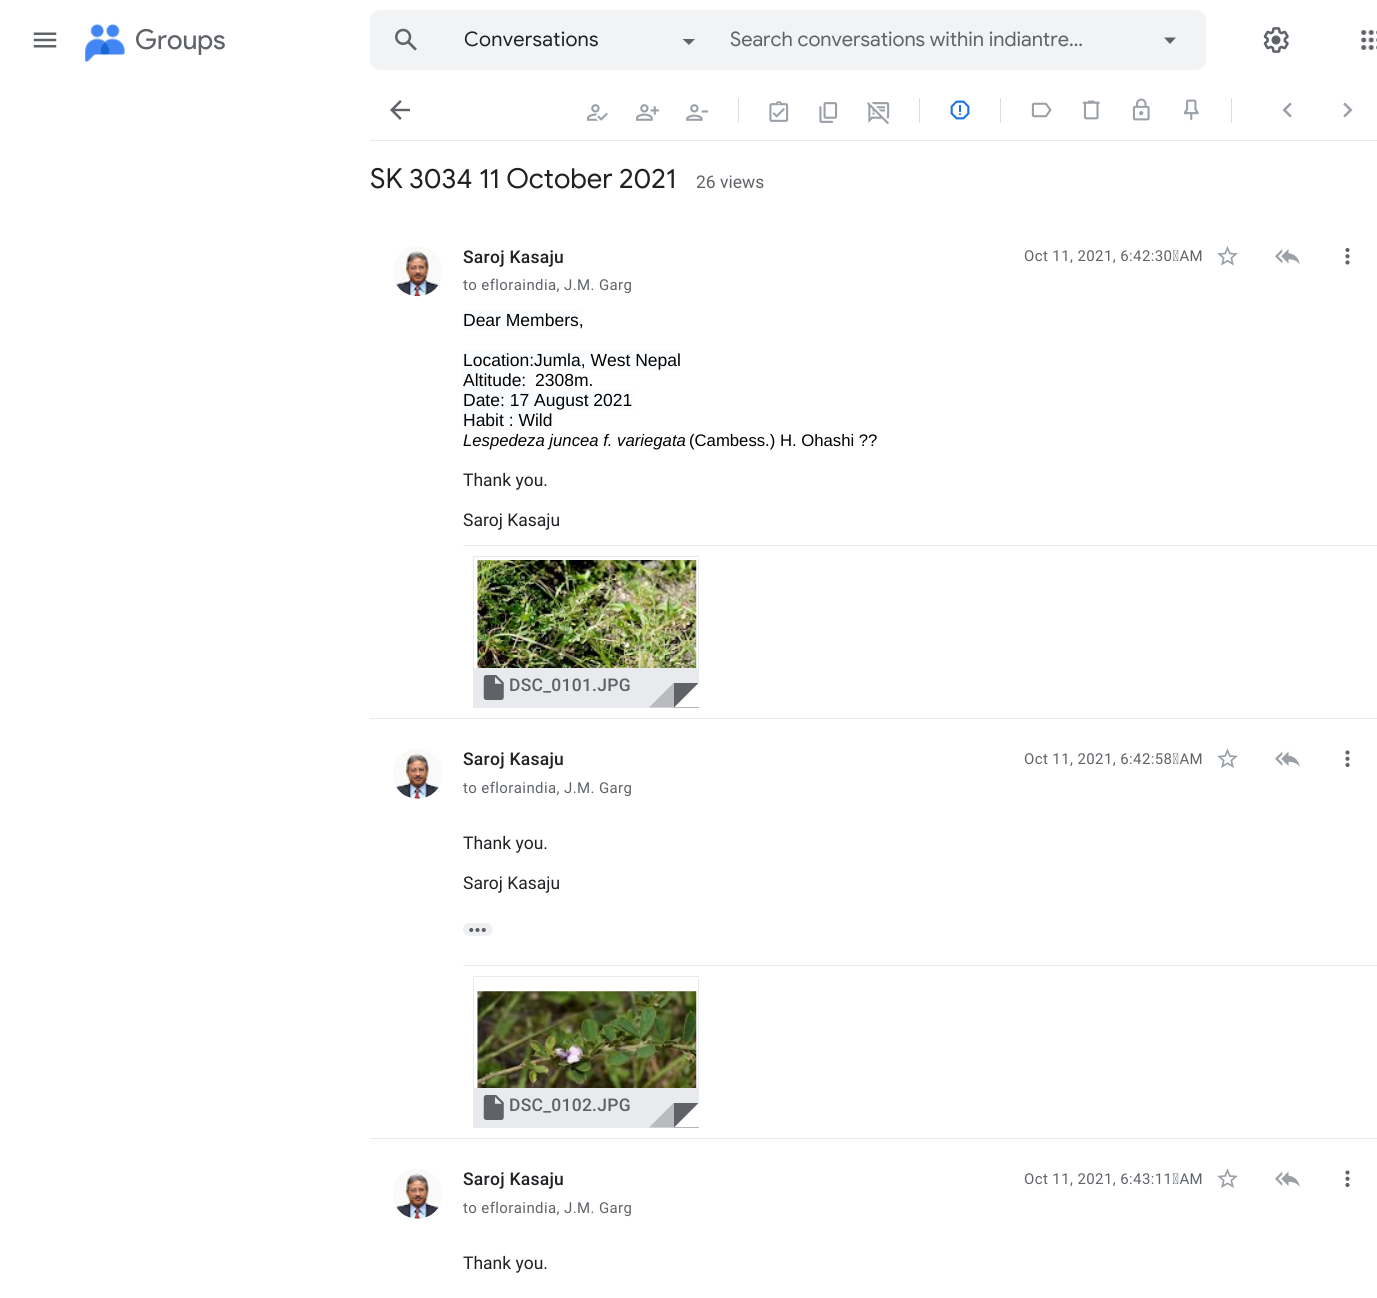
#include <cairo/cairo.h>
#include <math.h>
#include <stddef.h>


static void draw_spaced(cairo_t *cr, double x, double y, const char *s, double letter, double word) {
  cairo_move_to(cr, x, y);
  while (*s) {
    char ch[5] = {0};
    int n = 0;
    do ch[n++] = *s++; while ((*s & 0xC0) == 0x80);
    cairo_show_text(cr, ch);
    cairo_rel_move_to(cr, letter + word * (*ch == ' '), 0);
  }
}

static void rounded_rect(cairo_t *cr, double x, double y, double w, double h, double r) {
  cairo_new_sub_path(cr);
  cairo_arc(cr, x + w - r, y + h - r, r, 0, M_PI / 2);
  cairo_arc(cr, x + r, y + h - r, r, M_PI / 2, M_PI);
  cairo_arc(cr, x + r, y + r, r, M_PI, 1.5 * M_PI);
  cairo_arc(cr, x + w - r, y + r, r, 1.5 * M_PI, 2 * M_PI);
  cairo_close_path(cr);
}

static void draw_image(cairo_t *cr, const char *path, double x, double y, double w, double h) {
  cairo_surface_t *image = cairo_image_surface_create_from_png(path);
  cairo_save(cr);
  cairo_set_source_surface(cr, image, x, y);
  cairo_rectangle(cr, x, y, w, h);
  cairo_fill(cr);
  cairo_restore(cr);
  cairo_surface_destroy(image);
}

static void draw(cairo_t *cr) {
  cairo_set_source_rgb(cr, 1, 1, 1);
  cairo_paint(cr);
  draw_image(cr, "images/1.png", 33, 32, 24, 16);
  draw_image(cr, "images/2.png", 85, 23, 40, 40);
  cairo_set_source_rgb(cr, 241 / 255.0, 243 / 255.0, 244 / 255.0);
  rounded_rect(cr, 370, 10, 836, 60, 10);
  cairo_fill(cr);
  draw_image(cr, "images/3.png", 395, 28, 22, 23);
  cairo_set_source_rgb(cr, 95 / 255.0, 99 / 255.0, 104 / 255.0);
  cairo_new_path(cr);
  cairo_move_to(cr, 682.5, 39);
  cairo_line_to(cr, 695, 39);
  cairo_line_to(cr, 689, 45);
  cairo_close_path(cr);
  cairo_fill(cr);
  cairo_new_path(cr);
  cairo_move_to(cr, 1164, 37.5);
  cairo_line_to(cr, 1170, 44);
  cairo_line_to(cr, 1176, 37.5);
  cairo_close_path(cr);
  cairo_fill(cr);
  draw_image(cr, "images/4.png", 1263, 27, 26, 26);
  draw_image(cr, "images/5.png", 1361, 30, 16, 20);
  cairo_set_source_rgb(cr, 232 / 255.0, 234 / 255.0, 237 / 255.0);
  cairo_rectangle(cr, 370, 140, 1007, 1);
  cairo_fill(cr);
  draw_image(cr, "images/6.png", 390, 100, 20, 20);
  draw_image(cr, "images/7.png", 587, 104, 21, 17);
  draw_image(cr, "images/8.png", 636, 104, 23, 17);
  draw_image(cr, "images/9.png", 686, 104, 22, 17);
  cairo_set_source_rgb(cr, 221 / 255.0, 221 / 255.0, 221 / 255.0);
  cairo_rectangle(cr, 738, 98, 1, 25);
  cairo_fill(cr);
  draw_image(cr, "images/10.png", 769, 101, 20, 21);
  draw_image(cr, "images/11.png", 819, 102, 19, 21);
  draw_image(cr, "images/12.png", 867, 102, 23, 23);
  cairo_rectangle(cr, 919, 98, 1, 25);
  cairo_fill(cr);
  draw_image(cr, "images/13.png", 950, 100, 20, 20);
  cairo_rectangle(cr, 1000, 98, 1, 25);
  cairo_fill(cr);
  draw_image(cr, "images/14.png", 1031, 102, 21, 16);
  draw_image(cr, "images/15.png", 1082, 100, 18, 20);
  draw_image(cr, "images/16.png", 1132, 98, 18, 23);
  draw_image(cr, "images/17.png", 1183, 99, 16, 22);
  cairo_rectangle(cr, 1231, 98, 1, 25);
  cairo_fill(cr);
  draw_image(cr, "images/18.png", 1282, 102, 10, 16);
  draw_image(cr, "images/19.png", 1343, 102, 10, 16);
  cairo_set_source_rgb(cr, 232 / 255.0, 234 / 255.0, 237 / 255.0);
  cairo_rectangle(cr, 370, 718, 1007, 1);
  cairo_fill(cr);
  draw_image(cr, "images/20.png", 393, 246, 49, 51);
  draw_image(cr, "images/21.png", 1217, 246, 21, 20);
  draw_image(cr, "images/22.png", 1275, 249, 25, 16);
  draw_image(cr, "images/23.png", 1345, 247, 5, 18);
  cairo_set_source_rgb(cr, 250 / 255.0, 252 / 255.0, 254 / 255.0);
  cairo_rectangle(cr, 463, 310, 120, 20);
  cairo_fill(cr);
  cairo_rectangle(cr, 463, 350, 217, 20);
  cairo_fill(cr);
  cairo_rectangle(cr, 463, 370, 72, 20);
  cairo_fill(cr);
  cairo_rectangle(cr, 463, 390, 173, 20);
  cairo_fill(cr);
  cairo_rectangle(cr, 463, 410, 93, 20);
  cairo_fill(cr);
  cairo_set_source_rgb(cr, 232 / 255.0, 234 / 255.0, 237 / 255.0);
  cairo_rectangle(cr, 463, 545, 914, 1);
  cairo_fill(cr);
  draw_image(cr, "images/24.png", 477, 560, 220, 108);
  cairo_rectangle(cr, 473, 556, 226, 1);
  cairo_fill(cr);
  cairo_rectangle(cr, 473, 556, 1, 152);
  cairo_fill(cr);
  cairo_rectangle(cr, 698, 558, 1, 125);
  cairo_fill(cr);
  cairo_rectangle(cr, 474, 668, 224, 40);
  cairo_fill(cr);
  draw_image(cr, "images/25.png", 483, 675, 21, 25);
  cairo_set_source_rgb(cr, 186 / 255.0, 187 / 255.0, 190 / 255.0);
  cairo_new_path(cr);
  cairo_move_to(cr, 649, 707.5);
  cairo_line_to(cr, 674, 707.5);
  cairo_line_to(cr, 674, 682.5);
  cairo_close_path(cr);
  cairo_fill(cr);
  cairo_set_source_rgb(cr, 95 / 255.0, 99 / 255.0, 104 / 255.0);
  cairo_rectangle(cr, 674, 683, 25, 25);
  cairo_fill(cr);
  cairo_set_source_rgb(cr, 1, 1, 1);
  cairo_new_path(cr);
  cairo_move_to(cr, 674, 707.5);
  cairo_line_to(cr, 699, 707.5);
  cairo_line_to(cr, 699, 682.5);
  cairo_close_path(cr);
  cairo_fill(cr);
  cairo_set_source_rgb(cr, 232 / 255.0, 234 / 255.0, 237 / 255.0);
  cairo_rectangle(cr, 370, 1138, 1007, 1);
  cairo_fill(cr);
  draw_image(cr, "images/26.png", 393, 749, 49, 50);
  draw_image(cr, "images/27.png", 1217, 748, 21, 20);
  draw_image(cr, "images/28.png", 1275, 751, 25, 16);
  draw_image(cr, "images/29.png", 1345, 750, 5, 18);
  cairo_set_source_rgb(cr, 239 / 255.0, 240 / 255.0, 242 / 255.0);
  rounded_rect(cr, 463, 923, 30, 13, 6.5);
  cairo_fill(cr);
  draw_image(cr, "images/30.png", 469, 927, 17, 6);
  cairo_set_source_rgb(cr, 232 / 255.0, 234 / 255.0, 237 / 255.0);
  cairo_rectangle(cr, 463, 965, 914, 1);
  cairo_fill(cr);
  draw_image(cr, "images/31.png", 477, 991, 220, 97);
  cairo_rectangle(cr, 473, 976, 226, 1);
  cairo_fill(cr);
  cairo_rectangle(cr, 473, 976, 1, 152);
  cairo_fill(cr);
  cairo_rectangle(cr, 698, 978, 1, 125);
  cairo_fill(cr);
  cairo_rectangle(cr, 474, 1088, 224, 40);
  cairo_fill(cr);
  draw_image(cr, "images/25.png", 483, 1095, 21, 25);
  cairo_set_source_rgb(cr, 186 / 255.0, 187 / 255.0, 190 / 255.0);
  cairo_new_path(cr);
  cairo_move_to(cr, 649, 1127.5);
  cairo_line_to(cr, 674, 1127.5);
  cairo_line_to(cr, 674, 1102.5);
  cairo_close_path(cr);
  cairo_fill(cr);
  cairo_set_source_rgb(cr, 95 / 255.0, 99 / 255.0, 104 / 255.0);
  cairo_rectangle(cr, 674, 1103, 25, 25);
  cairo_fill(cr);
  cairo_set_source_rgb(cr, 1, 1, 1);
  cairo_new_path(cr);
  cairo_move_to(cr, 674, 1127.5);
  cairo_line_to(cr, 699, 1127.5);
  cairo_line_to(cr, 699, 1102.5);
  cairo_close_path(cr);
  cairo_fill(cr);
  draw_image(cr, "images/32.png", 393, 1169, 49, 50);
  draw_image(cr, "images/27.png", 1217, 1168, 21, 20);
  draw_image(cr, "images/28.png", 1275, 1171, 25, 16);
  draw_image(cr, "images/29.png", 1345, 1170, 5, 18);
  cairo_select_font_face(cr, "Product Sans", CAIRO_FONT_SLANT_NORMAL, CAIRO_FONT_WEIGHT_NORMAL);
  cairo_set_font_size(cr, 27.5);
  cairo_set_source_rgb(cr, 95 / 255.0, 99 / 255.0, 104 / 255.0);
  cairo_move_to(cr, 135, 49);
  cairo_show_text(cr, "Groups");
  cairo_select_font_face(cr, "Google Sans", CAIRO_FONT_SLANT_NORMAL, CAIRO_FONT_WEIGHT_NORMAL);
  cairo_set_font_size(cr, 20);
  cairo_set_source_rgb(cr, 32 / 255.0, 33 / 255.0, 36 / 255.0);
  draw_spaced(cr, 464, 46, "Conversations", 0.25, 0);
  cairo_set_source_rgb(cr, 95 / 255.0, 99 / 255.0, 104 / 255.0);
  cairo_move_to(cr, 730, 46);
  cairo_show_text(cr, "Search conversations within indiantre…");
  cairo_set_font_size(cr, 27.5);
  cairo_set_source_rgb(cr, 32 / 255.0, 33 / 255.0, 36 / 255.0);
  cairo_move_to(cr, 370, 188);
  cairo_show_text(cr, "SK 3034 11 October 2021");
  cairo_select_font_face(cr, "Roboto", CAIRO_FONT_SLANT_NORMAL, CAIRO_FONT_WEIGHT_NORMAL);
  cairo_set_font_size(cr, 17.5);
  cairo_set_source_rgb(cr, 95 / 255.0, 99 / 255.0, 104 / 255.0);
  cairo_move_to(cr, 696, 188);
  cairo_show_text(cr, "26 views");
  cairo_select_font_face(cr, "Roboto Medium", CAIRO_FONT_SLANT_NORMAL, CAIRO_FONT_WEIGHT_NORMAL);
  cairo_set_source_rgb(cr, 32 / 255.0, 33 / 255.0, 36 / 255.0);
  draw_spaced(cr, 463, 263, "Saroj Kasaju", 0.25, 0);
  cairo_select_font_face(cr, "Roboto", CAIRO_FONT_SLANT_NORMAL, CAIRO_FONT_WEIGHT_NORMAL);
  cairo_set_font_size(cr, 15);
  cairo_set_source_rgb(cr, 95 / 255.0, 99 / 255.0, 104 / 255.0);
  draw_spaced(cr, 1024, 261, "Oct 11, 2021, 6:42:30 AM", 0.4, 0);
  draw_spaced(cr, 463, 290, "to efloraindia, J.M. Garg", 0.4, 0);
  cairo_select_font_face(cr, "Liberation Sans", CAIRO_FONT_SLANT_NORMAL, CAIRO_FONT_WEIGHT_NORMAL);
  cairo_set_font_size(cr, 17.5);
  cairo_set_source_rgb(cr, 0, 0, 0);
  cairo_move_to(cr, 463, 326);
  cairo_show_text(cr, "Dear Members,");
  cairo_move_to(cr, 463, 366);
  cairo_show_text(cr, "Location:Jumla, West Nepal");
  cairo_move_to(cr, 463, 386);
  cairo_show_text(cr, "Altitude:");
  cairo_move_to(cr, 535, 386);
  cairo_show_text(cr, "2308m.");
  cairo_move_to(cr, 463, 406);
  cairo_show_text(cr, "Date: 17 August 2021");
  cairo_move_to(cr, 463, 426);
  cairo_show_text(cr, "Habit : Wild");
  cairo_select_font_face(cr, "Liberation Sans", CAIRO_FONT_SLANT_ITALIC, CAIRO_FONT_WEIGHT_NORMAL);
  cairo_set_font_size(cr, 16.7);
  cairo_move_to(cr, 463, 446);
  cairo_show_text(cr, "Lespedeza juncea f. variegata");
  cairo_select_font_face(cr, "Liberation Sans", CAIRO_FONT_SLANT_NORMAL, CAIRO_FONT_WEIGHT_NORMAL);
  cairo_move_to(cr, 689, 446);
  cairo_show_text(cr, "(Cambess.) H. Ohashi ?\077");
  cairo_select_font_face(cr, "Roboto", CAIRO_FONT_SLANT_NORMAL, CAIRO_FONT_WEIGHT_NORMAL);
  cairo_set_font_size(cr, 17.5);
  cairo_set_source_rgb(cr, 32 / 255.0, 33 / 255.0, 36 / 255.0);
  cairo_move_to(cr, 463, 486);
  cairo_show_text(cr, "Thank you.");
  cairo_move_to(cr, 463, 526);
  cairo_show_text(cr, "Saroj Kasaju");
  cairo_select_font_face(cr, "Roboto Medium", CAIRO_FONT_SLANT_NORMAL, CAIRO_FONT_WEIGHT_NORMAL);
  cairo_set_source_rgb(cr, 95 / 255.0, 99 / 255.0, 104 / 255.0);
  draw_spaced(cr, 509, 691, "DSC_0101.JPG", 0.25, 0);
  cairo_set_source_rgb(cr, 32 / 255.0, 33 / 255.0, 36 / 255.0);
  draw_spaced(cr, 463, 765, "Saroj Kasaju", 0.25, 0);
  cairo_select_font_face(cr, "Roboto", CAIRO_FONT_SLANT_NORMAL, CAIRO_FONT_WEIGHT_NORMAL);
  cairo_set_font_size(cr, 15);
  cairo_set_source_rgb(cr, 95 / 255.0, 99 / 255.0, 104 / 255.0);
  draw_spaced(cr, 1024, 764, "Oct 11, 2021, 6:42:58 AM", 0.4, 0);
  draw_spaced(cr, 463, 793, "to efloraindia, J.M. Garg", 0.4, 0);
  cairo_set_font_size(cr, 17.5);
  cairo_set_source_rgb(cr, 32 / 255.0, 33 / 255.0, 36 / 255.0);
  cairo_move_to(cr, 463, 849);
  cairo_show_text(cr, "Thank you.");
  cairo_move_to(cr, 463, 889);
  cairo_show_text(cr, "Saroj Kasaju");
  cairo_select_font_face(cr, "Roboto Medium", CAIRO_FONT_SLANT_NORMAL, CAIRO_FONT_WEIGHT_NORMAL);
  cairo_set_source_rgb(cr, 95 / 255.0, 99 / 255.0, 104 / 255.0);
  draw_spaced(cr, 509, 1111, "DSC_0102.JPG", 0.25, 0);
  cairo_set_source_rgb(cr, 32 / 255.0, 33 / 255.0, 36 / 255.0);
  draw_spaced(cr, 463, 1185, "Saroj Kasaju", 0.25, 0);
  cairo_select_font_face(cr, "Roboto", CAIRO_FONT_SLANT_NORMAL, CAIRO_FONT_WEIGHT_NORMAL);
  cairo_set_font_size(cr, 15);
  cairo_set_source_rgb(cr, 95 / 255.0, 99 / 255.0, 104 / 255.0);
  draw_spaced(cr, 1024, 1184, "Oct 11, 2021, 6:43:11 AM", 0.4, 0);
  draw_spaced(cr, 463, 1213, "to efloraindia, J.M. Garg", 0.4, 0);
  cairo_set_font_size(cr, 17.5);
  cairo_set_source_rgb(cr, 32 / 255.0, 33 / 255.0, 36 / 255.0);
  cairo_move_to(cr, 463, 1269);
  cairo_show_text(cr, "Thank you.");
}

int main(void) {
  cairo_surface_t *surface = cairo_image_surface_create(CAIRO_FORMAT_RGB24, 1377, 1298);
  cairo_t *cr = cairo_create(surface);
  cairo_font_options_t *options = cairo_font_options_create();
  cairo_font_options_set_hint_metrics(options, CAIRO_HINT_METRICS_OFF);
  cairo_font_options_set_hint_style(options, CAIRO_HINT_STYLE_NONE);
  cairo_set_font_options(cr, options);
  cairo_set_miter_limit(cr, 4);
  draw(cr);
  cairo_surface_write_to_png(surface, "out.png");
  cairo_font_options_destroy(options);
  cairo_destroy(cr);
  cairo_surface_destroy(surface);
  return 0;
}
